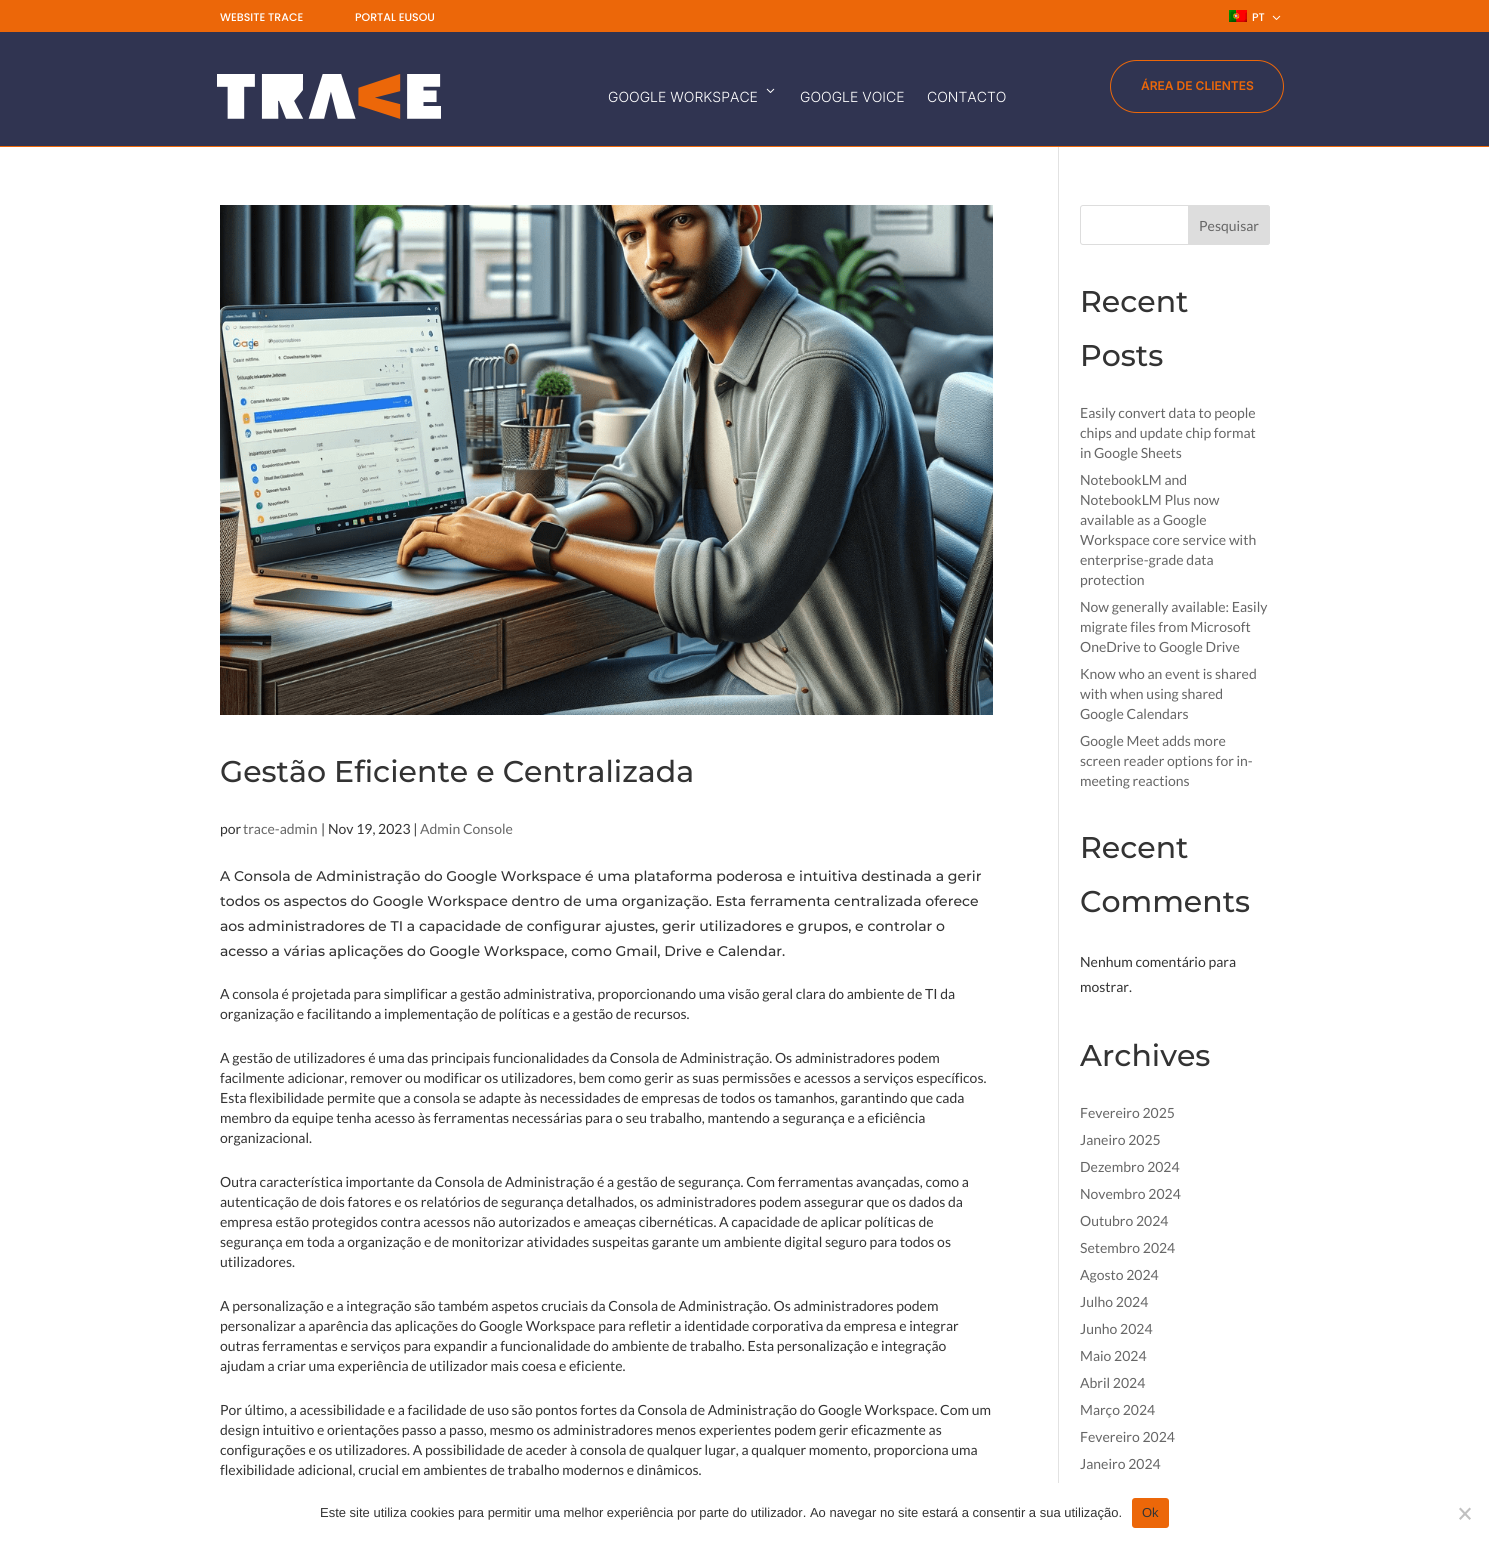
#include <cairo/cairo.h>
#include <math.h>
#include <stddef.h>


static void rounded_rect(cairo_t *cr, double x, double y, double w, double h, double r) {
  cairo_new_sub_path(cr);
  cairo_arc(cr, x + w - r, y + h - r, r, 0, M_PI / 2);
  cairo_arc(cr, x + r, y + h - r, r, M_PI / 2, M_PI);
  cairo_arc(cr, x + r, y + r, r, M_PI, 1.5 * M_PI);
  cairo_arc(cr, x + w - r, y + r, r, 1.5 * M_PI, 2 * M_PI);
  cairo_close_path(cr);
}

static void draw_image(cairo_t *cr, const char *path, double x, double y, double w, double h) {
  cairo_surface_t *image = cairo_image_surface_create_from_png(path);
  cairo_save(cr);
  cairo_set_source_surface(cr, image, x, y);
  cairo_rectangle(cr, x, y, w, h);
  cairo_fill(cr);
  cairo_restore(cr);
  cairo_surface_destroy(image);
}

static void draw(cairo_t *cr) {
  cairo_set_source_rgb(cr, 1, 1, 1);
  cairo_paint(cr);
  cairo_set_source_rgb(cr, 236 / 255.0, 103 / 255.0, 9 / 255.0);
  cairo_rectangle(cr, 0, 0, 1489, 32);
  cairo_fill(cr);
  draw_image(cr, "images/1.png", 1229, 10, 18, 12);
  draw_image(cr, "images/2.png", 1272, 15, 9, 5);
  cairo_set_source_rgb(cr, 48 / 255.0, 52 / 255.0, 81 / 255.0);
  cairo_rectangle(cr, 0, 32, 1489, 114);
  cairo_fill(cr);
  cairo_set_source_rgb(cr, 236 / 255.0, 103 / 255.0, 9 / 255.0);
  cairo_rectangle(cr, 0, 146, 1489, 1);
  cairo_fill(cr);
  rounded_rect(cr, 1110.5, 60.5, 173, 52, 26);
  cairo_set_line_width(cr, 1);
  cairo_stroke(cr);
  draw_image(cr, "images/3.png", 217, 74, 224, 45);
  draw_image(cr, "images/4.png", 766, 88, 9, 5);
  cairo_set_source_rgb(cr, 226 / 255.0, 226 / 255.0, 226 / 255.0);
  cairo_rectangle(cr, 1058, 147, 1, 1336);
  cairo_fill(cr);
  draw_image(cr, "images/5.png", 220, 205, 773, 510);
  rounded_rect(cr, 1080.5, 205.5, 189, 39, 2.5);
  cairo_set_source_rgb(cr, 221 / 255.0, 221 / 255.0, 221 / 255.0);
  cairo_stroke(cr);
  cairo_new_path(cr);
  cairo_move_to(cr, 1188.5, 205.5);
  cairo_line_to(cr, 1267, 205.5);
  cairo_curve_to(cr, 1268.5, 205.5, 1269.5, 206.5, 1269.5, 208);
  cairo_line_to(cr, 1269.5, 242);
  cairo_curve_to(cr, 1269.5, 243.5, 1268.5, 244.5, 1267, 244.5);
  cairo_line_to(cr, 1188.5, 244.5);
  cairo_close_path(cr);
  cairo_fill_preserve(cr);
  cairo_stroke(cr);
  cairo_set_source_rgb(cr, 236 / 255.0, 103 / 255.0, 9 / 255.0);
  rounded_rect(cr, 1132, 1498, 37, 30, 3);
  cairo_fill(cr);
  cairo_set_source_rgb(cr, 192 / 255.0, 192 / 255.0, 192 / 255.0);
  cairo_new_path(cr);
  cairo_move_to(cr, 1469.5, 1507.5);
  cairo_line_to(cr, 1471, 1509);
  cairo_line_to(cr, 1460.5, 1520);
  cairo_line_to(cr, 1459, 1518.5);
  cairo_close_path(cr);
  cairo_fill(cr);
  cairo_new_path(cr);
  cairo_move_to(cr, 1459, 1509);
  cairo_line_to(cr, 1460.5, 1507.5);
  cairo_line_to(cr, 1471, 1518.5);
  cairo_line_to(cr, 1469.5, 1520);
  cairo_close_path(cr);
  cairo_fill(cr);
  cairo_select_font_face(cr, "Poppins Medium", CAIRO_FONT_SLANT_NORMAL, CAIRO_FONT_WEIGHT_NORMAL);
  cairo_set_font_size(cr, 11);
  cairo_set_source_rgb(cr, 1, 1, 1);
  cairo_move_to(cr, 220, 21);
  cairo_show_text(cr, "WEBSITE TRACE");
  cairo_move_to(cr, 355, 21);
  cairo_show_text(cr, "PORTAL EUSOU");
  cairo_move_to(cr, 1252, 21);
  cairo_show_text(cr, "PT");
  cairo_select_font_face(cr, "Inter SemiBold", CAIRO_FONT_SLANT_NORMAL, CAIRO_FONT_WEIGHT_NORMAL);
  cairo_set_font_size(cr, 12);
  cairo_set_source_rgb(cr, 236 / 255.0, 103 / 255.0, 9 / 255.0);
  cairo_move_to(cr, 1141, 90);
  cairo_show_text(cr, "ÁREA DE CLIENTES");
  cairo_select_font_face(cr, "Inter Light", CAIRO_FONT_SLANT_NORMAL, CAIRO_FONT_WEIGHT_NORMAL);
  cairo_set_font_size(cr, 14);
  cairo_set_source_rgb(cr, 1, 1, 1);
  cairo_move_to(cr, 608, 102);
  cairo_show_text(cr, "GOOGLE WORKSPACE");
  cairo_move_to(cr, 800, 102);
  cairo_show_text(cr, "GOOGLE VOICE");
  cairo_move_to(cr, 927, 102);
  cairo_show_text(cr, "CONTACTO");
  cairo_select_font_face(cr, "Montserrat Medium", CAIRO_FONT_SLANT_NORMAL, CAIRO_FONT_WEIGHT_NORMAL);
  cairo_set_font_size(cr, 30);
  cairo_set_source_rgb(cr, 51 / 255.0, 51 / 255.0, 51 / 255.0);
  cairo_move_to(cr, 220, 782);
  cairo_show_text(cr, "Gestão Eficiente e Centralizada");
  cairo_select_font_face(cr, "Lato", CAIRO_FONT_SLANT_NORMAL, CAIRO_FONT_WEIGHT_NORMAL);
  cairo_set_font_size(cr, 14);
  cairo_move_to(cr, 220, 834);
  cairo_show_text(cr, "por");
  cairo_set_source_rgb(cr, 102 / 255.0, 102 / 255.0, 102 / 255.0);
  cairo_move_to(cr, 243, 834);
  cairo_show_text(cr, "trace-admin");
  cairo_set_source_rgb(cr, 51 / 255.0, 51 / 255.0, 51 / 255.0);
  cairo_move_to(cr, 321, 834);
  cairo_show_text(cr, "| Nov 19, 2023 |");
  cairo_set_source_rgb(cr, 102 / 255.0, 102 / 255.0, 102 / 255.0);
  cairo_move_to(cr, 420, 834);
  cairo_show_text(cr, "Admin Console");
  cairo_select_font_face(cr, "Montserrat Medium", CAIRO_FONT_SLANT_NORMAL, CAIRO_FONT_WEIGHT_NORMAL);
  cairo_set_source_rgb(cr, 51 / 255.0, 51 / 255.0, 51 / 255.0);
  cairo_move_to(cr, 220, 881);
  cairo_show_text(cr, "A Consola de Administração do Google Workspace é uma plataforma poderosa e intuitiva destinada a gerir");
  cairo_move_to(cr, 220, 906);
  cairo_show_text(cr, "todos os aspectos do Google Workspace dentro de uma organização. Esta ferramenta centralizada oferece");
  cairo_move_to(cr, 220, 931);
  cairo_show_text(cr, "aos administradores de TI a capacidade de configurar ajustes, gerir utilizadores e grupos, e controlar o");
  cairo_move_to(cr, 220, 956);
  cairo_show_text(cr, "acesso a várias aplicações do Google Workspace, como Gmail, Drive e Calendar.");
  cairo_select_font_face(cr, "Lato", CAIRO_FONT_SLANT_NORMAL, CAIRO_FONT_WEIGHT_NORMAL);
  cairo_move_to(cr, 220, 999);
  cairo_show_text(cr, "A consola é projetada para simplificar a gestão administrativa, proporcionando uma visão geral clara do ambiente de TI da");
  cairo_move_to(cr, 220, 1019);
  cairo_show_text(cr, "organização e facilitando a implementação de políticas e a gestão de recursos.");
  cairo_move_to(cr, 220, 1063);
  cairo_show_text(cr, "A gestão de utilizadores é uma das principais funcionalidades da Consola de Administração. Os administradores podem");
  cairo_move_to(cr, 220, 1083);
  cairo_show_text(cr, "facilmente adicionar, remover ou modificar os utilizadores, bem como gerir as suas permissões e acessos a serviços específicos.");
  cairo_move_to(cr, 220, 1103);
  cairo_show_text(cr, "Esta flexibilidade permite que a consola se adapte às necessidades de empresas de todos os tamanhos, garantindo que cada");
  cairo_move_to(cr, 220, 1123);
  cairo_show_text(cr, "membro da equipe tenha acesso às ferramentas necessárias para o seu trabalho, mantendo a segurança e a eficiência");
  cairo_move_to(cr, 220, 1143);
  cairo_show_text(cr, "organizacional.");
  cairo_move_to(cr, 220, 1187);
  cairo_show_text(cr, "Outra característica importante da Consola de Administração é a gestão de segurança. Com ferramentas avançadas, como a");
  cairo_move_to(cr, 220, 1207);
  cairo_show_text(cr, "autenticação de dois fatores e os relatórios de segurança detalhados, os administradores podem assegurar que os dados da");
  cairo_move_to(cr, 220, 1227);
  cairo_show_text(cr, "empresa estão protegidos contra acessos não autorizados e ameaças cibernéticas. A capacidade de aplicar políticas de");
  cairo_move_to(cr, 220, 1247);
  cairo_show_text(cr, "segurança em toda a organização e de monitorizar atividades suspeitas garante um ambiente digital seguro para todos os");
  cairo_move_to(cr, 220, 1267);
  cairo_show_text(cr, "utilizadores.");
  cairo_move_to(cr, 220, 1311);
  cairo_show_text(cr, "A personalização e a integração são também aspetos cruciais da Consola de Administração. Os administradores podem");
  cairo_move_to(cr, 220, 1331);
  cairo_show_text(cr, "personalizar a aparência das aplicações do Google Workspace para refletir a identidade corporativa da empresa e integrar");
  cairo_move_to(cr, 220, 1351);
  cairo_show_text(cr, "outras ferramentas e serviços para expandir a funcionalidade do ambiente de trabalho. Esta personalização e integração");
  cairo_move_to(cr, 220, 1371);
  cairo_show_text(cr, "ajudam a criar uma experiência de utilizador mais coesa e eficiente.");
  cairo_move_to(cr, 220, 1415);
  cairo_show_text(cr, "Por último, a acessibilidade e a facilidade de uso são pontos fortes da Consola de Administração do Google Workspace. Com um");
  cairo_move_to(cr, 220, 1435);
  cairo_show_text(cr, "design intuitivo e orientações passo a passo, mesmo os administradores menos experientes podem gerir eficazmente as");
  cairo_move_to(cr, 220, 1455);
  cairo_show_text(cr, "configurações e os utilizadores. A possibilidade de aceder à consola de qualquer lugar, a qualquer momento, proporciona uma");
  cairo_move_to(cr, 220, 1475);
  cairo_show_text(cr, "flexibilidade adicional, crucial em ambientes de trabalho modernos e dinâmicos.");
  cairo_set_source_rgb(cr, 102 / 255.0, 102 / 255.0, 102 / 255.0);
  cairo_move_to(cr, 1199, 231);
  cairo_show_text(cr, "Pesquisar");
  cairo_select_font_face(cr, "Montserrat Medium", CAIRO_FONT_SLANT_NORMAL, CAIRO_FONT_WEIGHT_NORMAL);
  cairo_set_font_size(cr, 30);
  cairo_set_source_rgb(cr, 51 / 255.0, 51 / 255.0, 51 / 255.0);
  cairo_move_to(cr, 1080, 312);
  cairo_show_text(cr, "Recent");
  cairo_move_to(cr, 1080, 366);
  cairo_show_text(cr, "Posts");
  cairo_select_font_face(cr, "Lato", CAIRO_FONT_SLANT_NORMAL, CAIRO_FONT_WEIGHT_NORMAL);
  cairo_set_font_size(cr, 14);
  cairo_set_source_rgb(cr, 102 / 255.0, 102 / 255.0, 102 / 255.0);
  cairo_move_to(cr, 1080, 418);
  cairo_show_text(cr, "Easily convert data to people");
  cairo_move_to(cr, 1080, 438);
  cairo_show_text(cr, "chips and update chip format");
  cairo_move_to(cr, 1080, 458);
  cairo_show_text(cr, "in Google Sheets");
  cairo_move_to(cr, 1080, 485);
  cairo_show_text(cr, "NotebookLM and");
  cairo_move_to(cr, 1080, 505);
  cairo_show_text(cr, "NotebookLM Plus now");
  cairo_move_to(cr, 1080, 525);
  cairo_show_text(cr, "available as a Google");
  cairo_move_to(cr, 1080, 545);
  cairo_show_text(cr, "Workspace core service with");
  cairo_move_to(cr, 1080, 565);
  cairo_show_text(cr, "enterprise-grade data");
  cairo_move_to(cr, 1080, 585);
  cairo_show_text(cr, "protection");
  cairo_move_to(cr, 1080, 612);
  cairo_show_text(cr, "Now generally available: Easily");
  cairo_move_to(cr, 1080, 632);
  cairo_show_text(cr, "migrate files from Microsoft");
  cairo_move_to(cr, 1080, 652);
  cairo_show_text(cr, "OneDrive to Google Drive");
  cairo_move_to(cr, 1080, 679);
  cairo_show_text(cr, "Know who an event is shared");
  cairo_move_to(cr, 1080, 699);
  cairo_show_text(cr, "with when using shared");
  cairo_move_to(cr, 1080, 719);
  cairo_show_text(cr, "Google Calendars");
  cairo_move_to(cr, 1080, 746);
  cairo_show_text(cr, "Google Meet adds more");
  cairo_move_to(cr, 1080, 766);
  cairo_show_text(cr, "screen reader options for in-");
  cairo_move_to(cr, 1080, 786);
  cairo_show_text(cr, "meeting reactions");
  cairo_select_font_face(cr, "Montserrat Medium", CAIRO_FONT_SLANT_NORMAL, CAIRO_FONT_WEIGHT_NORMAL);
  cairo_set_font_size(cr, 30);
  cairo_set_source_rgb(cr, 51 / 255.0, 51 / 255.0, 51 / 255.0);
  cairo_move_to(cr, 1080, 858);
  cairo_show_text(cr, "Recent");
  cairo_move_to(cr, 1080, 912);
  cairo_show_text(cr, "Comments");
  cairo_select_font_face(cr, "Lato", CAIRO_FONT_SLANT_NORMAL, CAIRO_FONT_WEIGHT_NORMAL);
  cairo_set_font_size(cr, 14);
  cairo_move_to(cr, 1080, 967);
  cairo_show_text(cr, "Nenhum comentário para");
  cairo_move_to(cr, 1080, 992);
  cairo_show_text(cr, "mostrar.");
  cairo_select_font_face(cr, "Montserrat Medium", CAIRO_FONT_SLANT_NORMAL, CAIRO_FONT_WEIGHT_NORMAL);
  cairo_set_font_size(cr, 30);
  cairo_move_to(cr, 1080, 1066);
  cairo_show_text(cr, "Archives");
  cairo_select_font_face(cr, "Lato", CAIRO_FONT_SLANT_NORMAL, CAIRO_FONT_WEIGHT_NORMAL);
  cairo_set_font_size(cr, 14);
  cairo_set_source_rgb(cr, 102 / 255.0, 102 / 255.0, 102 / 255.0);
  cairo_move_to(cr, 1080, 1118);
  cairo_show_text(cr, "Fevereiro 2025");
  cairo_move_to(cr, 1080, 1145);
  cairo_show_text(cr, "Janeiro 2025");
  cairo_move_to(cr, 1080, 1172);
  cairo_show_text(cr, "Dezembro 2024");
  cairo_move_to(cr, 1080, 1199);
  cairo_show_text(cr, "Novembro 2024");
  cairo_move_to(cr, 1080, 1226);
  cairo_show_text(cr, "Outubro 2024");
  cairo_move_to(cr, 1080, 1253);
  cairo_show_text(cr, "Setembro 2024");
  cairo_move_to(cr, 1080, 1280);
  cairo_show_text(cr, "Agosto 2024");
  cairo_move_to(cr, 1080, 1307);
  cairo_show_text(cr, "Julho 2024");
  cairo_move_to(cr, 1080, 1334);
  cairo_show_text(cr, "Junho 2024");
  cairo_move_to(cr, 1080, 1361);
  cairo_show_text(cr, "Maio 2024");
  cairo_move_to(cr, 1080, 1388);
  cairo_show_text(cr, "Abril 2024");
  cairo_move_to(cr, 1080, 1415);
  cairo_show_text(cr, "Março 2024");
  cairo_move_to(cr, 1080, 1442);
  cairo_show_text(cr, "Fevereiro 2024");
  cairo_move_to(cr, 1080, 1469);
  cairo_show_text(cr, "Janeiro 2024");
  cairo_select_font_face(cr, "Liberation Sans", CAIRO_FONT_SLANT_NORMAL, CAIRO_FONT_WEIGHT_NORMAL);
  cairo_set_font_size(cr, 13);
  cairo_set_source_rgb(cr, 51 / 255.0, 51 / 255.0, 51 / 255.0);
  cairo_move_to(cr, 320, 1517);
  cairo_show_text(cr, "Este site utiliza cookies para permitir uma melhor experiência por parte do utilizador. Ao navegar no site estará a consentir a sua utilização.");
  cairo_move_to(cr, 1142, 1517);
  cairo_show_text(cr, "Ok");
}

int main(void) {
  cairo_surface_t *surface = cairo_image_surface_create(CAIRO_FORMAT_RGB24, 1489, 1544);
  cairo_t *cr = cairo_create(surface);
  cairo_font_options_t *options = cairo_font_options_create();
  cairo_font_options_set_hint_metrics(options, CAIRO_HINT_METRICS_OFF);
  cairo_font_options_set_hint_style(options, CAIRO_HINT_STYLE_NONE);
  cairo_set_font_options(cr, options);
  cairo_set_miter_limit(cr, 4);
  draw(cr);
  cairo_surface_write_to_png(surface, "out.png");
  cairo_font_options_destroy(options);
  cairo_destroy(cr);
  cairo_surface_destroy(surface);
  return 0;
}
